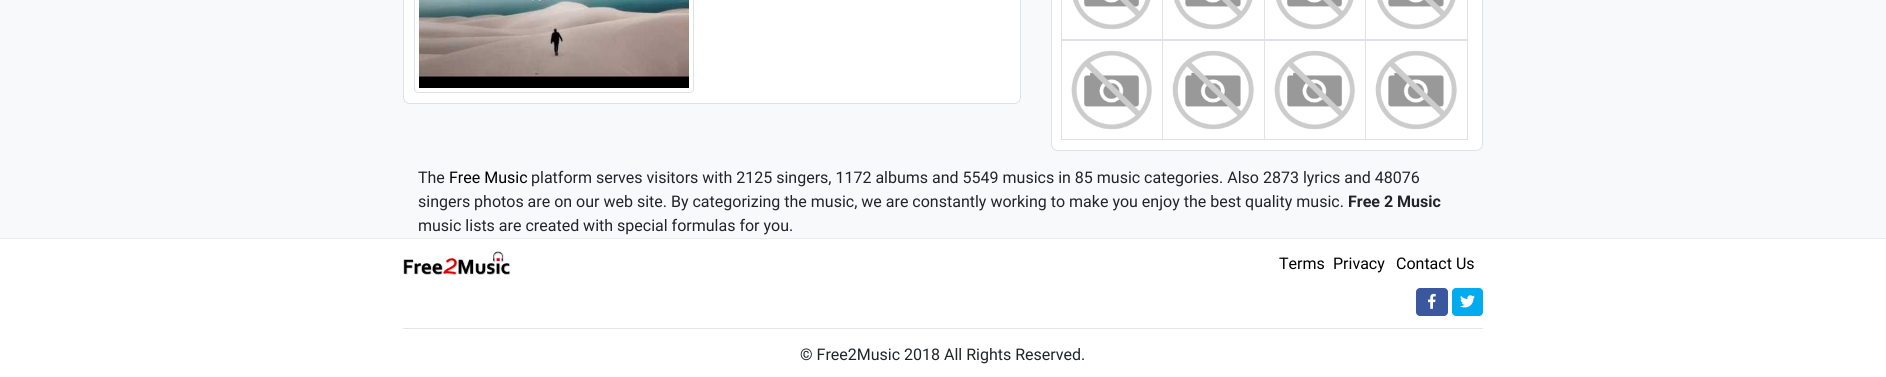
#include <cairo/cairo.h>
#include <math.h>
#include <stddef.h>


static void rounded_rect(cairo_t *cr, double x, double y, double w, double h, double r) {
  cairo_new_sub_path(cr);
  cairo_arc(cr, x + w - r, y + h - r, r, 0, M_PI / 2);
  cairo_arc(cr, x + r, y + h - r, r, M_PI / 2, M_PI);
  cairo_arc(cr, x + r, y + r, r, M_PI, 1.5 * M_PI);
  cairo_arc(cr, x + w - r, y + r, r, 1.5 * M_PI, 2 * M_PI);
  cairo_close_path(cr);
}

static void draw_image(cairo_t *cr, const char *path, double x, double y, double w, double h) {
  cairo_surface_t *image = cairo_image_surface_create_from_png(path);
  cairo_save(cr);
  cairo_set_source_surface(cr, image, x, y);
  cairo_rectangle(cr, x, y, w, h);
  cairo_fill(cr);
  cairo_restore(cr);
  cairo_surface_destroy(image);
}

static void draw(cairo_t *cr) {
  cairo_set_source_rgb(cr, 248 / 255.0, 249 / 255.0, 250 / 255.0);
  cairo_paint(cr);
  cairo_set_source_rgb(cr, 1, 1, 1);
  rounded_rect(cr, 403.5, -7.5, 617, 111, 6.5);
  cairo_fill_preserve(cr);
  cairo_set_source_rgb(cr, 222 / 255.0, 226 / 255.0, 230 / 255.0);
  cairo_set_line_width(cr, 1);
  cairo_stroke(cr);
  rounded_rect(cr, 414.5, -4.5, 279, 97, 3.5);
  cairo_stroke(cr);
  draw_image(cr, "images/1.png", 419, 0, 270, 88);
  cairo_set_source_rgb(cr, 1, 1, 1);
  rounded_rect(cr, 1051.5, -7.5, 431, 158, 6.5);
  cairo_fill_preserve(cr);
  cairo_set_source_rgb(cr, 222 / 255.0, 226 / 255.0, 230 / 255.0);
  cairo_stroke(cr);
  cairo_rectangle(cr, 1061.5, -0.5, 101, 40);
  cairo_stroke(cr);
  draw_image(cr, "images/2.png", 1073, 0, 78, 30);
  cairo_rectangle(cr, 1162.5, -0.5, 102, 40);
  cairo_stroke(cr);
  draw_image(cr, "images/3.png", 1174, 0, 79, 30);
  cairo_rectangle(cr, 1264.5, -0.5, 101, 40);
  cairo_stroke(cr);
  draw_image(cr, "images/2.png", 1276, 0, 78, 30);
  cairo_rectangle(cr, 1365.5, -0.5, 102, 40);
  cairo_stroke(cr);
  draw_image(cr, "images/3.png", 1377, 0, 79, 30);
  cairo_rectangle(cr, 1061.5, 40.5, 101, 99);
  cairo_stroke(cr);
  draw_image(cr, "images/4.png", 1071, 50, 81, 80);
  cairo_rectangle(cr, 1162.5, 40.5, 102, 99);
  cairo_stroke(cr);
  draw_image(cr, "images/5.png", 1172, 50, 82, 80);
  cairo_rectangle(cr, 1264.5, 40.5, 101, 99);
  cairo_stroke(cr);
  draw_image(cr, "images/4.png", 1274, 50, 81, 80);
  cairo_rectangle(cr, 1365.5, 40.5, 102, 99);
  cairo_stroke(cr);
  draw_image(cr, "images/5.png", 1375, 50, 82, 80);
  cairo_set_source_rgb(cr, 1, 1, 1);
  cairo_rectangle(cr, 0, 239, 1886, 138);
  cairo_fill(cr);
  cairo_set_source_rgb(cr, 233 / 255.0, 236 / 255.0, 239 / 255.0);
  cairo_rectangle(cr, 0, 238, 1886, 1);
  cairo_fill(cr);
  draw_image(cr, "images/6.png", 403, 251, 108, 24);
  cairo_set_source_rgb(cr, 59 / 255.0, 87 / 255.0, 157 / 255.0);
  rounded_rect(cr, 1416, 288, 32, 28, 4);
  cairo_fill(cr);
  draw_image(cr, "images/7.png", 1428, 293, 8, 16);
  cairo_set_source_rgb(cr, 0, 172 / 255.0, 237 / 255.0);
  rounded_rect(cr, 1452, 288, 31, 28, 4);
  cairo_fill(cr);
  draw_image(cr, "images/8.png", 1460, 295, 15, 13);
  cairo_set_source_rgb(cr, 230 / 255.0, 230 / 255.0, 230 / 255.0);
  cairo_rectangle(cr, 403, 328, 1080, 1);
  cairo_fill(cr);
  cairo_select_font_face(cr, "Roboto", CAIRO_FONT_SLANT_NORMAL, CAIRO_FONT_WEIGHT_NORMAL);
  cairo_set_font_size(cr, 16);
  cairo_set_source_rgb(cr, 33 / 255.0, 37 / 255.0, 41 / 255.0);
  cairo_move_to(cr, 418, 183);
  cairo_show_text(cr, "The");
  cairo_set_source_rgb(cr, 0, 0, 0);
  cairo_move_to(cr, 449, 183);
  cairo_show_text(cr, "Free Music");
  cairo_set_source_rgb(cr, 33 / 255.0, 37 / 255.0, 41 / 255.0);
  cairo_move_to(cr, 531, 183);
  cairo_show_text(cr, "platform serves visitors with 2125 singers, 1172 albums and 5549 musics in 85 music categories. Also 2873 lyrics and 48076");
  cairo_move_to(cr, 418, 207);
  cairo_show_text(cr, "singers photos are on our web site. By categorizing the music, we are constantly working to make you enjoy the best quality music.");
  cairo_select_font_face(cr, "Roboto", CAIRO_FONT_SLANT_NORMAL, CAIRO_FONT_WEIGHT_BOLD);
  cairo_move_to(cr, 1348, 207);
  cairo_show_text(cr, "Free 2 Music");
  cairo_select_font_face(cr, "Roboto", CAIRO_FONT_SLANT_NORMAL, CAIRO_FONT_WEIGHT_NORMAL);
  cairo_move_to(cr, 418, 231);
  cairo_show_text(cr, "music lists are created with special formulas for you.");
  cairo_set_source_rgb(cr, 0, 0, 0);
  cairo_move_to(cr, 1279, 269);
  cairo_show_text(cr, "Terms");
  cairo_move_to(cr, 1333, 269);
  cairo_show_text(cr, "Privacy");
  cairo_move_to(cr, 1396, 269);
  cairo_show_text(cr, "Contact Us");
  cairo_set_source_rgb(cr, 33 / 255.0, 37 / 255.0, 41 / 255.0);
  cairo_move_to(cr, 800, 360);
  cairo_show_text(cr, "© Free2Music 2018 All Rights Reserved.");
}

int main(void) {
  cairo_surface_t *surface = cairo_image_surface_create(CAIRO_FORMAT_RGB24, 1886, 377);
  cairo_t *cr = cairo_create(surface);
  cairo_font_options_t *options = cairo_font_options_create();
  cairo_font_options_set_hint_metrics(options, CAIRO_HINT_METRICS_OFF);
  cairo_font_options_set_hint_style(options, CAIRO_HINT_STYLE_NONE);
  cairo_set_font_options(cr, options);
  cairo_set_miter_limit(cr, 4);
  draw(cr);
  cairo_surface_write_to_png(surface, "out.png");
  cairo_font_options_destroy(options);
  cairo_destroy(cr);
  cairo_surface_destroy(surface);
  return 0;
}
